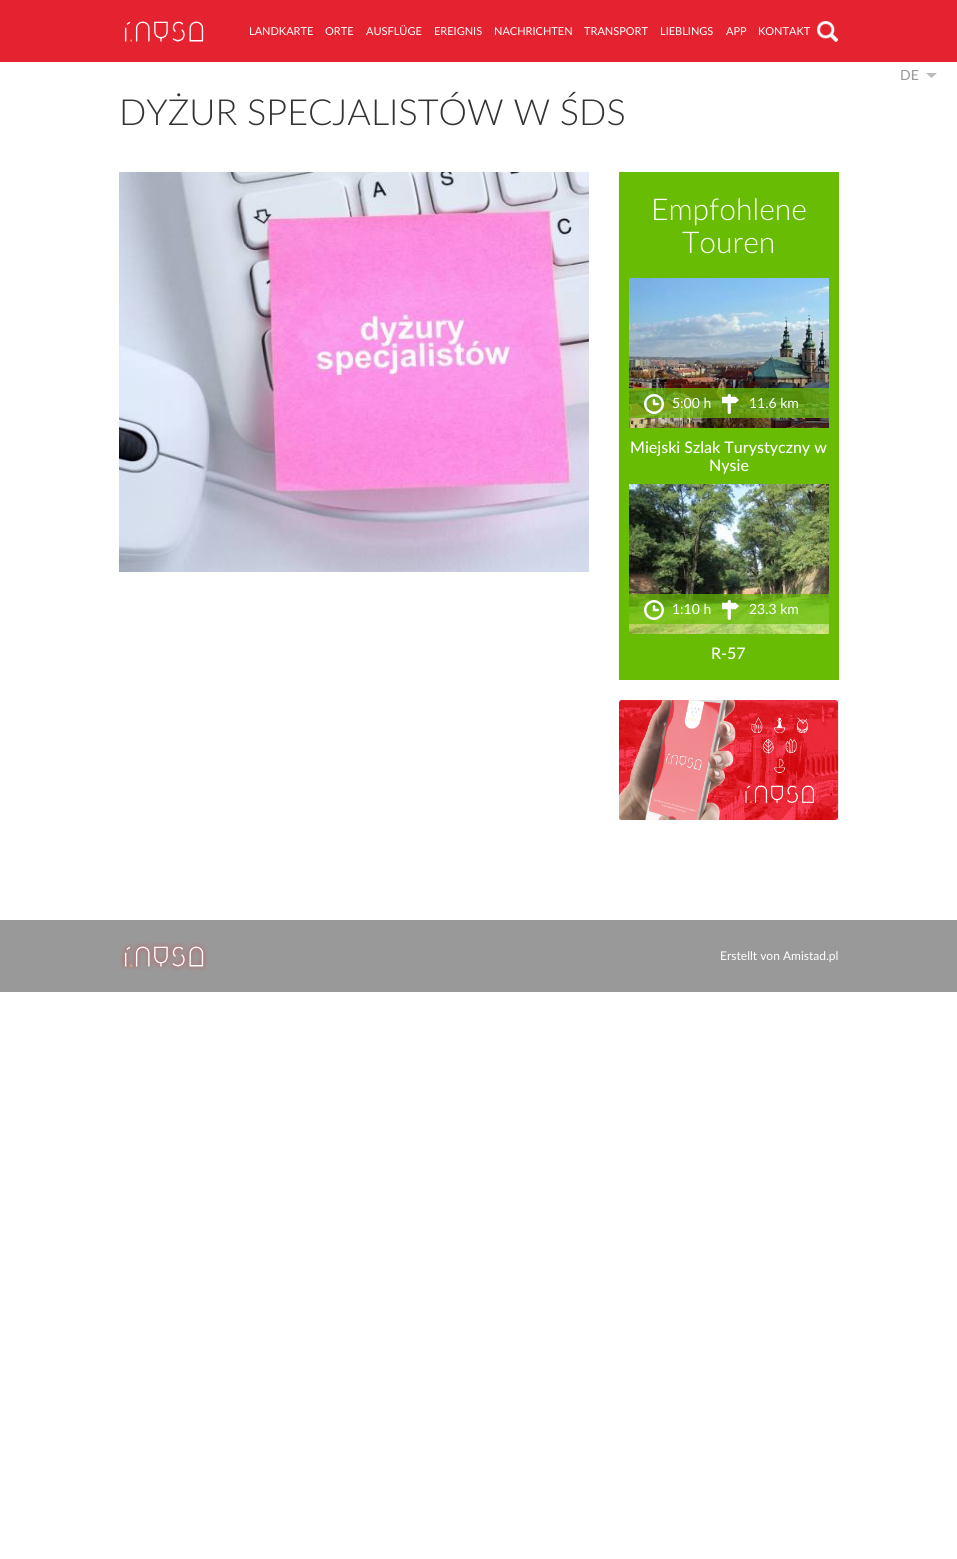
#include <cairo/cairo.h>
#include <math.h>
#include <stddef.h>


static void draw_image(cairo_t *cr, const char *path, double x, double y, double w, double h) {
  cairo_surface_t *image = cairo_image_surface_create_from_png(path);
  cairo_save(cr);
  cairo_set_source_surface(cr, image, x, y);
  cairo_rectangle(cr, x, y, w, h);
  cairo_fill(cr);
  cairo_restore(cr);
  cairo_surface_destroy(image);
}

static void draw(cairo_t *cr) {
  cairo_set_source_rgb(cr, 1, 1, 1);
  cairo_paint(cr);
  cairo_set_source_rgb(cr, 229 / 255.0, 35 / 255.0, 48 / 255.0);
  cairo_rectangle(cr, 0, 0, 957, 62);
  cairo_fill(cr);
  draw_image(cr, "images/1.png", 124, 21, 80, 21);
  draw_image(cr, "images/2.png", 817, 21, 21, 21);
  draw_image(cr, "images/3.png", 926, 73, 11, 5);
  draw_image(cr, "images/4.png", 119, 172, 470, 400);
  cairo_set_source_rgb(cr, 104 / 255.0, 189 / 255.0, 4 / 255.0);
  cairo_rectangle(cr, 619, 172, 220, 508);
  cairo_fill(cr);
  draw_image(cr, "images/5.png", 629, 278, 200, 150);
  cairo_set_source_rgba(cr, 104 / 255.0, 189 / 255.0, 4 / 255.0, 0.7);
  cairo_rectangle(cr, 629, 388, 200, 30);
  cairo_fill(cr);
  draw_image(cr, "images/6.png", 644, 394, 20, 20);
  draw_image(cr, "images/7.png", 722, 394, 17, 20);
  draw_image(cr, "images/8.png", 629, 484, 200, 150);
  cairo_rectangle(cr, 629, 594, 200, 30);
  cairo_fill(cr);
  draw_image(cr, "images/9.png", 644, 600, 20, 20);
  draw_image(cr, "images/10.png", 722, 600, 17, 20);
  cairo_set_source_rgb(cr, 234 / 255.0, 233 / 255.0, 232 / 255.0);
  cairo_rectangle(cr, 619, 700, 220, 120);
  cairo_fill(cr);
  draw_image(cr, "images/11.png", 619, 700, 219, 120);
  cairo_set_source_rgb(cr, 153 / 255.0, 153 / 255.0, 153 / 255.0);
  cairo_rectangle(cr, 0, 920, 957, 72);
  cairo_fill(cr);
  draw_image(cr, "images/12.png", 120, 942, 88, 29);
  cairo_select_font_face(cr, "Lato", CAIRO_FONT_SLANT_NORMAL, CAIRO_FONT_WEIGHT_NORMAL);
  cairo_set_font_size(cr, 11);
  cairo_set_source_rgb(cr, 1, 1, 1);
  cairo_move_to(cr, 249, 35);
  cairo_show_text(cr, "LANDKARTE");
  cairo_move_to(cr, 325, 35);
  cairo_show_text(cr, "ORTE");
  cairo_move_to(cr, 366, 35);
  cairo_show_text(cr, "AUSFLÜGE");
  cairo_move_to(cr, 434, 35);
  cairo_show_text(cr, "EREIGNIS");
  cairo_move_to(cr, 494, 35);
  cairo_show_text(cr, "NACHRICHTEN");
  cairo_move_to(cr, 584, 35);
  cairo_show_text(cr, "TRANSPORT");
  cairo_move_to(cr, 660, 35);
  cairo_show_text(cr, "LIEBLINGS");
  cairo_move_to(cr, 726, 35);
  cairo_show_text(cr, "APP");
  cairo_move_to(cr, 758, 35);
  cairo_show_text(cr, "KONTAKT");
  cairo_set_font_size(cr, 14);
  cairo_set_source_rgb(cr, 153 / 255.0, 153 / 255.0, 153 / 255.0);
  cairo_move_to(cr, 900, 80);
  cairo_show_text(cr, "DE");
  cairo_select_font_face(cr, "Lato Light", CAIRO_FONT_SLANT_NORMAL, CAIRO_FONT_WEIGHT_NORMAL);
  cairo_set_font_size(cr, 36);
  cairo_set_source_rgb(cr, 51 / 255.0, 51 / 255.0, 51 / 255.0);
  cairo_move_to(cr, 119, 125);
  cairo_show_text(cr, "DYŻUR SPECJALISTÓW W ŚDS");
  cairo_set_font_size(cr, 30);
  cairo_set_source_rgb(cr, 1, 1, 1);
  cairo_move_to(cr, 651, 220);
  cairo_show_text(cr, "Empfohlene");
  cairo_move_to(cr, 682, 253);
  cairo_show_text(cr, "Touren");
  cairo_select_font_face(cr, "Lato", CAIRO_FONT_SLANT_NORMAL, CAIRO_FONT_WEIGHT_NORMAL);
  cairo_set_font_size(cr, 14);
  cairo_move_to(cr, 672, 408);
  cairo_show_text(cr, "5:00 h");
  cairo_move_to(cr, 749, 408);
  cairo_show_text(cr, "11.6 km");
  cairo_select_font_face(cr, "Lato Medium", CAIRO_FONT_SLANT_NORMAL, CAIRO_FONT_WEIGHT_NORMAL);
  cairo_set_font_size(cr, 16);
  cairo_move_to(cr, 630, 453);
  cairo_show_text(cr, "Miejski Szlak Turystyczny w");
  cairo_move_to(cr, 709, 471);
  cairo_show_text(cr, "Nysie");
  cairo_select_font_face(cr, "Lato", CAIRO_FONT_SLANT_NORMAL, CAIRO_FONT_WEIGHT_NORMAL);
  cairo_set_font_size(cr, 14);
  cairo_move_to(cr, 672, 614);
  cairo_show_text(cr, "1:10 h");
  cairo_move_to(cr, 749, 614);
  cairo_show_text(cr, "23.3 km");
  cairo_select_font_face(cr, "Lato Medium", CAIRO_FONT_SLANT_NORMAL, CAIRO_FONT_WEIGHT_NORMAL);
  cairo_set_font_size(cr, 16);
  cairo_move_to(cr, 711, 659);
  cairo_show_text(cr, "R-57");
  cairo_select_font_face(cr, "Lato", CAIRO_FONT_SLANT_NORMAL, CAIRO_FONT_WEIGHT_NORMAL);
  cairo_set_font_size(cr, 12);
  cairo_move_to(cr, 720, 960);
  cairo_show_text(cr, "Erstellt von Amistad.pl");
}

int main(void) {
  cairo_surface_t *surface = cairo_image_surface_create(CAIRO_FORMAT_RGB24, 957, 1559);
  cairo_t *cr = cairo_create(surface);
  cairo_font_options_t *options = cairo_font_options_create();
  cairo_font_options_set_hint_metrics(options, CAIRO_HINT_METRICS_OFF);
  cairo_font_options_set_hint_style(options, CAIRO_HINT_STYLE_NONE);
  cairo_set_font_options(cr, options);
  cairo_set_miter_limit(cr, 4);
  draw(cr);
  cairo_surface_write_to_png(surface, "out.png");
  cairo_font_options_destroy(options);
  cairo_destroy(cr);
  cairo_surface_destroy(surface);
  return 0;
}
